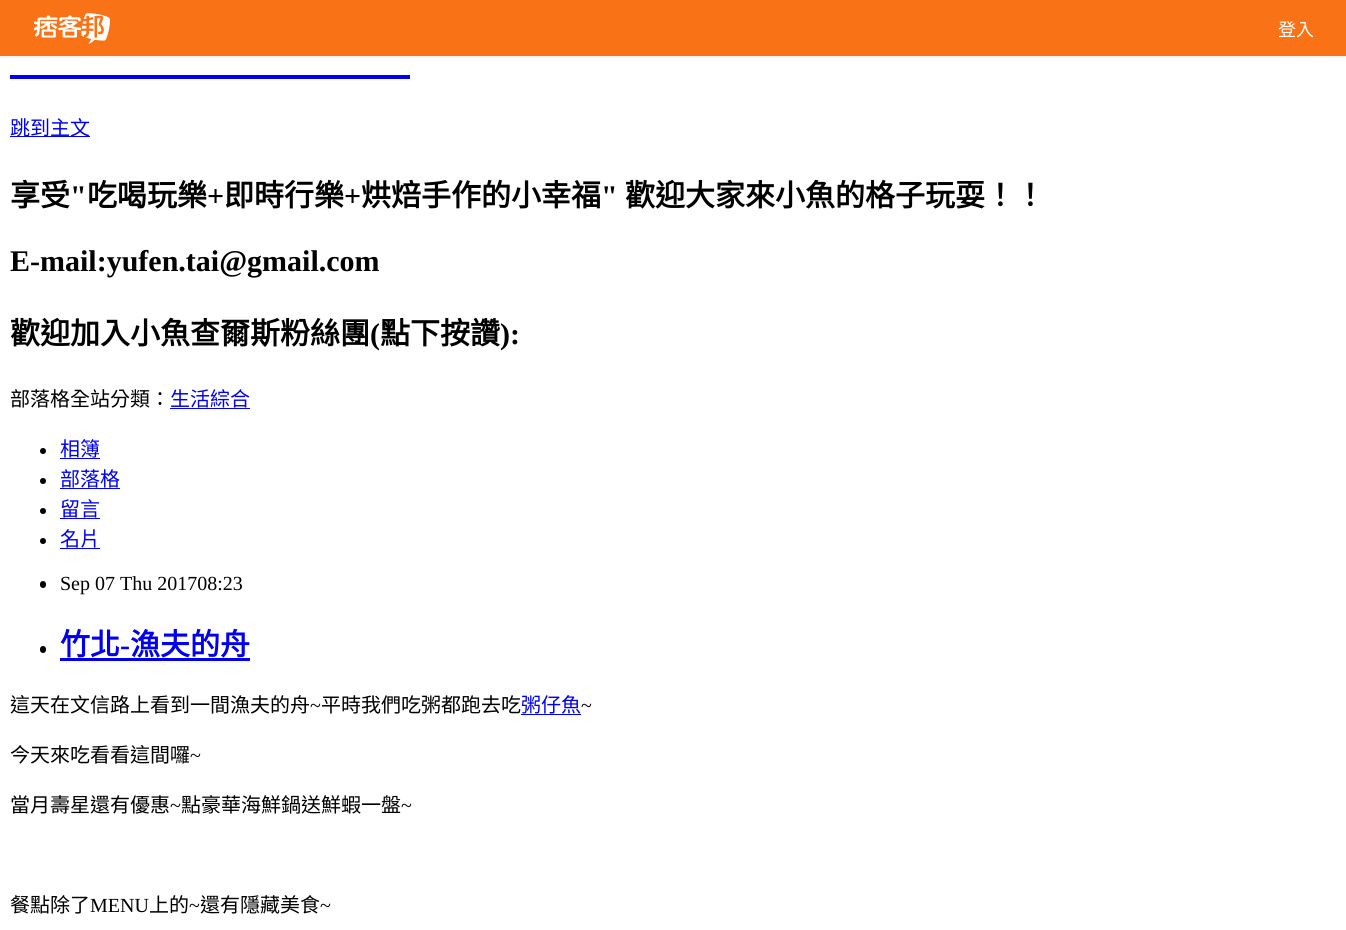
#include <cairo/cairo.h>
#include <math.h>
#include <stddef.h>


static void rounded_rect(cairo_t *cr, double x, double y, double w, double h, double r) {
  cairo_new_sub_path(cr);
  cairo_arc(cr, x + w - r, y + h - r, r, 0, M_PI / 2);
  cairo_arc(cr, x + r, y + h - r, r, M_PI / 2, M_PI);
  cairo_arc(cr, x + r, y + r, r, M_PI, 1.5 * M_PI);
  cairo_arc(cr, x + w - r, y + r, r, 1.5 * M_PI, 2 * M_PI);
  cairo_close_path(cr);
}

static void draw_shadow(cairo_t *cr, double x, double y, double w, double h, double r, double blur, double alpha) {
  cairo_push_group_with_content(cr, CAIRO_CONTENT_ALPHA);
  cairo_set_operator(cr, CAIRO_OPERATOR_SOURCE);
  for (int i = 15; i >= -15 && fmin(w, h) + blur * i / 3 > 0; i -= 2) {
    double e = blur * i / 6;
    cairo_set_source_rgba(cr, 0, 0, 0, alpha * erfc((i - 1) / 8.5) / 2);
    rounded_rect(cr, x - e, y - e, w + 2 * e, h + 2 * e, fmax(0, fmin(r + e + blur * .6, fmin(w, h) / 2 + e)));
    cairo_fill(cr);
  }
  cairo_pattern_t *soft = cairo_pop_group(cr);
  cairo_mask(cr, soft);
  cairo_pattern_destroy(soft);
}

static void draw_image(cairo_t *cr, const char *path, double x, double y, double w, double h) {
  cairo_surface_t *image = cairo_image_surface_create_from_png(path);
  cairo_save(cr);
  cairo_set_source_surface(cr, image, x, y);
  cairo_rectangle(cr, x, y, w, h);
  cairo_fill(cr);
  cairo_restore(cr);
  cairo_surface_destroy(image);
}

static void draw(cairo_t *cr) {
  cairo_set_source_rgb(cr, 1, 1, 1);
  cairo_paint(cr);
  cairo_set_source_rgb(cr, 0, 0, 0);
  draw_shadow(cr, 0, 1, 1346, 57, 0, 1, 0.05);
  cairo_set_source_rgb(cr, 249 / 255.0, 115 / 255.0, 22 / 255.0);
  cairo_rectangle(cr, 0, 0, 1346, 56);
  cairo_fill(cr);
  draw_image(cr, "images/1.png", 34, 13, 76, 31);
  cairo_set_source_rgb(cr, 0, 0, 238 / 255.0);
  cairo_rectangle(cr, 10, 75, 400, 4);
  cairo_fill(cr);
  cairo_rectangle(cr, 10, 136, 80, 1);
  cairo_fill(cr);
  cairo_rectangle(cr, 170, 408, 80, 1);
  cairo_fill(cr);
  cairo_set_source_rgb(cr, 0, 0, 0);
  cairo_arc(cr, 43, 451, 3, 0, 2 * M_PI);
  cairo_fill(cr);
  cairo_set_source_rgb(cr, 0, 0, 238 / 255.0);
  cairo_rectangle(cr, 60, 458, 40, 1);
  cairo_fill(cr);
  cairo_set_source_rgb(cr, 0, 0, 0);
  cairo_arc(cr, 43, 481, 3, 0, 2 * M_PI);
  cairo_fill(cr);
  cairo_set_source_rgb(cr, 0, 0, 238 / 255.0);
  cairo_rectangle(cr, 60, 488, 60, 1);
  cairo_fill(cr);
  cairo_set_source_rgb(cr, 0, 0, 0);
  cairo_arc(cr, 43, 511, 3, 0, 2 * M_PI);
  cairo_fill(cr);
  cairo_set_source_rgb(cr, 0, 0, 238 / 255.0);
  cairo_rectangle(cr, 60, 518, 40, 1);
  cairo_fill(cr);
  cairo_set_source_rgb(cr, 0, 0, 0);
  cairo_arc(cr, 43, 541, 3, 0, 2 * M_PI);
  cairo_fill(cr);
  cairo_set_source_rgb(cr, 0, 0, 238 / 255.0);
  cairo_rectangle(cr, 60, 548, 40, 1);
  cairo_fill(cr);
  cairo_set_source_rgb(cr, 0, 0, 0);
  rounded_rect(cr, 40, 581, 6, 7, 3);
  cairo_fill(cr);
  rounded_rect(cr, 40, 646, 6, 7, 3);
  cairo_fill(cr);
  cairo_set_source_rgb(cr, 0, 0, 238 / 255.0);
  cairo_rectangle(cr, 60, 658, 190, 3);
  cairo_fill(cr);
  cairo_rectangle(cr, 521, 714, 60, 1);
  cairo_fill(cr);
  cairo_select_font_face(cr, "Noto Sans CJK TC", CAIRO_FONT_SLANT_NORMAL, CAIRO_FONT_WEIGHT_NORMAL);
  cairo_set_font_size(cr, 18);
  cairo_set_source_rgb(cr, 1, 1, 1);
  cairo_move_to(cr, 1278, 36);
  cairo_show_text(cr, "登入");
  cairo_set_font_size(cr, 20);
  cairo_set_source_rgb(cr, 0, 0, 238 / 255.0);
  cairo_move_to(cr, 10, 135);
  cairo_show_text(cr, "跳到主文");
  cairo_select_font_face(cr, "Noto Sans CJK TC", CAIRO_FONT_SLANT_NORMAL, CAIRO_FONT_WEIGHT_BOLD);
  cairo_set_font_size(cr, 30);
  cairo_set_source_rgb(cr, 0, 0, 0);
  cairo_move_to(cr, 10, 206);
  cairo_show_text(cr, "享受");
  cairo_select_font_face(cr, "Liberation Serif", CAIRO_FONT_SLANT_NORMAL, CAIRO_FONT_WEIGHT_BOLD);
  cairo_move_to(cr, 70, 206);
  cairo_show_text(cr, "\"");
  cairo_select_font_face(cr, "Noto Sans CJK TC", CAIRO_FONT_SLANT_NORMAL, CAIRO_FONT_WEIGHT_BOLD);
  cairo_move_to(cr, 87, 206);
  cairo_show_text(cr, "吃喝玩樂");
  cairo_select_font_face(cr, "Liberation Serif", CAIRO_FONT_SLANT_NORMAL, CAIRO_FONT_WEIGHT_BOLD);
  cairo_move_to(cr, 207, 206);
  cairo_show_text(cr, "+");
  cairo_select_font_face(cr, "Noto Sans CJK TC", CAIRO_FONT_SLANT_NORMAL, CAIRO_FONT_WEIGHT_BOLD);
  cairo_move_to(cr, 224, 206);
  cairo_show_text(cr, "即時行樂");
  cairo_select_font_face(cr, "Liberation Serif", CAIRO_FONT_SLANT_NORMAL, CAIRO_FONT_WEIGHT_BOLD);
  cairo_move_to(cr, 344, 206);
  cairo_show_text(cr, "+");
  cairo_select_font_face(cr, "Noto Sans CJK TC", CAIRO_FONT_SLANT_NORMAL, CAIRO_FONT_WEIGHT_BOLD);
  cairo_move_to(cr, 361, 206);
  cairo_show_text(cr, "烘焙手作的小幸福");
  cairo_select_font_face(cr, "Liberation Serif", CAIRO_FONT_SLANT_NORMAL, CAIRO_FONT_WEIGHT_BOLD);
  cairo_move_to(cr, 601, 206);
  cairo_show_text(cr, "\"");
  cairo_select_font_face(cr, "Noto Sans CJK TC", CAIRO_FONT_SLANT_NORMAL, CAIRO_FONT_WEIGHT_BOLD);
  cairo_move_to(cr, 625, 206);
  cairo_show_text(cr, "歡迎大家來小魚的格子玩耍！！");
  cairo_select_font_face(cr, "Liberation Serif", CAIRO_FONT_SLANT_NORMAL, CAIRO_FONT_WEIGHT_BOLD);
  cairo_move_to(cr, 10, 271);
  cairo_show_text(cr, "E-mail:yufen.tai@gmail.com");
  cairo_select_font_face(cr, "Noto Sans CJK TC", CAIRO_FONT_SLANT_NORMAL, CAIRO_FONT_WEIGHT_BOLD);
  cairo_move_to(cr, 10, 344);
  cairo_show_text(cr, "歡迎加入小魚查爾斯粉絲團");
  cairo_select_font_face(cr, "Liberation Serif", CAIRO_FONT_SLANT_NORMAL, CAIRO_FONT_WEIGHT_BOLD);
  cairo_move_to(cr, 370, 344);
  cairo_show_text(cr, "(");
  cairo_select_font_face(cr, "Noto Sans CJK TC", CAIRO_FONT_SLANT_NORMAL, CAIRO_FONT_WEIGHT_BOLD);
  cairo_move_to(cr, 380, 344);
  cairo_show_text(cr, "點下按讚");
  cairo_select_font_face(cr, "Liberation Serif", CAIRO_FONT_SLANT_NORMAL, CAIRO_FONT_WEIGHT_BOLD);
  cairo_move_to(cr, 500, 344);
  cairo_show_text(cr, "):");
  cairo_select_font_face(cr, "Noto Sans CJK TC", CAIRO_FONT_SLANT_NORMAL, CAIRO_FONT_WEIGHT_NORMAL);
  cairo_set_font_size(cr, 20);
  cairo_move_to(cr, 10, 406);
  cairo_show_text(cr, "部落格全站分類：");
  cairo_set_source_rgb(cr, 0, 0, 238 / 255.0);
  cairo_move_to(cr, 170, 406);
  cairo_show_text(cr, "生活綜合");
  cairo_move_to(cr, 60, 456);
  cairo_show_text(cr, "相簿");
  cairo_move_to(cr, 60, 486);
  cairo_show_text(cr, "部落格");
  cairo_move_to(cr, 60, 516);
  cairo_show_text(cr, "留言");
  cairo_move_to(cr, 60, 546);
  cairo_show_text(cr, "名片");
  cairo_select_font_face(cr, "Liberation Serif", CAIRO_FONT_SLANT_NORMAL, CAIRO_FONT_WEIGHT_NORMAL);
  cairo_set_source_rgb(cr, 0, 0, 0);
  cairo_move_to(cr, 60, 590);
  cairo_show_text(cr, "Sep 07 Thu 201708:23");
  cairo_select_font_face(cr, "Noto Sans CJK TC", CAIRO_FONT_SLANT_NORMAL, CAIRO_FONT_WEIGHT_BOLD);
  cairo_set_font_size(cr, 30);
  cairo_set_source_rgb(cr, 0, 0, 238 / 255.0);
  cairo_move_to(cr, 60, 655);
  cairo_show_text(cr, "竹北");
  cairo_select_font_face(cr, "Liberation Serif", CAIRO_FONT_SLANT_NORMAL, CAIRO_FONT_WEIGHT_BOLD);
  cairo_move_to(cr, 120, 655);
  cairo_show_text(cr, "-");
  cairo_select_font_face(cr, "Noto Sans CJK TC", CAIRO_FONT_SLANT_NORMAL, CAIRO_FONT_WEIGHT_BOLD);
  cairo_move_to(cr, 130, 655);
  cairo_show_text(cr, "漁夫的舟");
  cairo_select_font_face(cr, "Noto Sans CJK TC", CAIRO_FONT_SLANT_NORMAL, CAIRO_FONT_WEIGHT_NORMAL);
  cairo_set_font_size(cr, 20);
  cairo_set_source_rgb(cr, 0, 0, 0);
  cairo_move_to(cr, 10, 712);
  cairo_show_text(cr, "這天在文信路上看到一間漁夫的舟");
  cairo_select_font_face(cr, "Liberation Serif", CAIRO_FONT_SLANT_NORMAL, CAIRO_FONT_WEIGHT_NORMAL);
  cairo_move_to(cr, 310, 712);
  cairo_show_text(cr, "~");
  cairo_select_font_face(cr, "Noto Sans CJK TC", CAIRO_FONT_SLANT_NORMAL, CAIRO_FONT_WEIGHT_NORMAL);
  cairo_move_to(cr, 321, 712);
  cairo_show_text(cr, "平時我們吃粥都跑去吃");
  cairo_set_source_rgb(cr, 0, 0, 238 / 255.0);
  cairo_move_to(cr, 521, 712);
  cairo_show_text(cr, "粥仔魚");
  cairo_select_font_face(cr, "Liberation Serif", CAIRO_FONT_SLANT_NORMAL, CAIRO_FONT_WEIGHT_NORMAL);
  cairo_set_source_rgb(cr, 0, 0, 0);
  cairo_move_to(cr, 581, 712);
  cairo_show_text(cr, "~");
  cairo_select_font_face(cr, "Noto Sans CJK TC", CAIRO_FONT_SLANT_NORMAL, CAIRO_FONT_WEIGHT_NORMAL);
  cairo_move_to(cr, 10, 762);
  cairo_show_text(cr, "今天來吃看看這間囉");
  cairo_select_font_face(cr, "Liberation Serif", CAIRO_FONT_SLANT_NORMAL, CAIRO_FONT_WEIGHT_NORMAL);
  cairo_move_to(cr, 190, 762);
  cairo_show_text(cr, "~");
  cairo_select_font_face(cr, "Noto Sans CJK TC", CAIRO_FONT_SLANT_NORMAL, CAIRO_FONT_WEIGHT_NORMAL);
  cairo_move_to(cr, 10, 812);
  cairo_show_text(cr, "當月壽星還有優惠");
  cairo_select_font_face(cr, "Liberation Serif", CAIRO_FONT_SLANT_NORMAL, CAIRO_FONT_WEIGHT_NORMAL);
  cairo_move_to(cr, 170, 812);
  cairo_show_text(cr, "~");
  cairo_select_font_face(cr, "Noto Sans CJK TC", CAIRO_FONT_SLANT_NORMAL, CAIRO_FONT_WEIGHT_NORMAL);
  cairo_move_to(cr, 181, 812);
  cairo_show_text(cr, "點豪華海鮮鍋送鮮蝦一盤");
  cairo_select_font_face(cr, "Liberation Serif", CAIRO_FONT_SLANT_NORMAL, CAIRO_FONT_WEIGHT_NORMAL);
  cairo_move_to(cr, 401, 812);
  cairo_show_text(cr, "~");
  cairo_select_font_face(cr, "Noto Sans CJK TC", CAIRO_FONT_SLANT_NORMAL, CAIRO_FONT_WEIGHT_NORMAL);
  cairo_move_to(cr, 10, 912);
  cairo_show_text(cr, "餐點除了");
  cairo_select_font_face(cr, "Liberation Serif", CAIRO_FONT_SLANT_NORMAL, CAIRO_FONT_WEIGHT_NORMAL);
  cairo_move_to(cr, 90, 912);
  cairo_show_text(cr, "MENU");
  cairo_select_font_face(cr, "Noto Sans CJK TC", CAIRO_FONT_SLANT_NORMAL, CAIRO_FONT_WEIGHT_NORMAL);
  cairo_move_to(cr, 149, 912);
  cairo_show_text(cr, "上的");
  cairo_select_font_face(cr, "Liberation Serif", CAIRO_FONT_SLANT_NORMAL, CAIRO_FONT_WEIGHT_NORMAL);
  cairo_move_to(cr, 189, 912);
  cairo_show_text(cr, "~");
  cairo_select_font_face(cr, "Noto Sans CJK TC", CAIRO_FONT_SLANT_NORMAL, CAIRO_FONT_WEIGHT_NORMAL);
  cairo_move_to(cr, 200, 912);
  cairo_show_text(cr, "還有隱藏美食");
  cairo_select_font_face(cr, "Liberation Serif", CAIRO_FONT_SLANT_NORMAL, CAIRO_FONT_WEIGHT_NORMAL);
  cairo_move_to(cr, 320, 912);
  cairo_show_text(cr, "~");
}

int main(void) {
  cairo_surface_t *surface = cairo_image_surface_create(CAIRO_FORMAT_RGB24, 1346, 930);
  cairo_t *cr = cairo_create(surface);
  cairo_font_options_t *options = cairo_font_options_create();
  cairo_font_options_set_hint_metrics(options, CAIRO_HINT_METRICS_OFF);
  cairo_font_options_set_hint_style(options, CAIRO_HINT_STYLE_NONE);
  cairo_set_font_options(cr, options);
  cairo_set_miter_limit(cr, 4);
  draw(cr);
  cairo_surface_write_to_png(surface, "out.png");
  cairo_font_options_destroy(options);
  cairo_destroy(cr);
  cairo_surface_destroy(surface);
  return 0;
}
